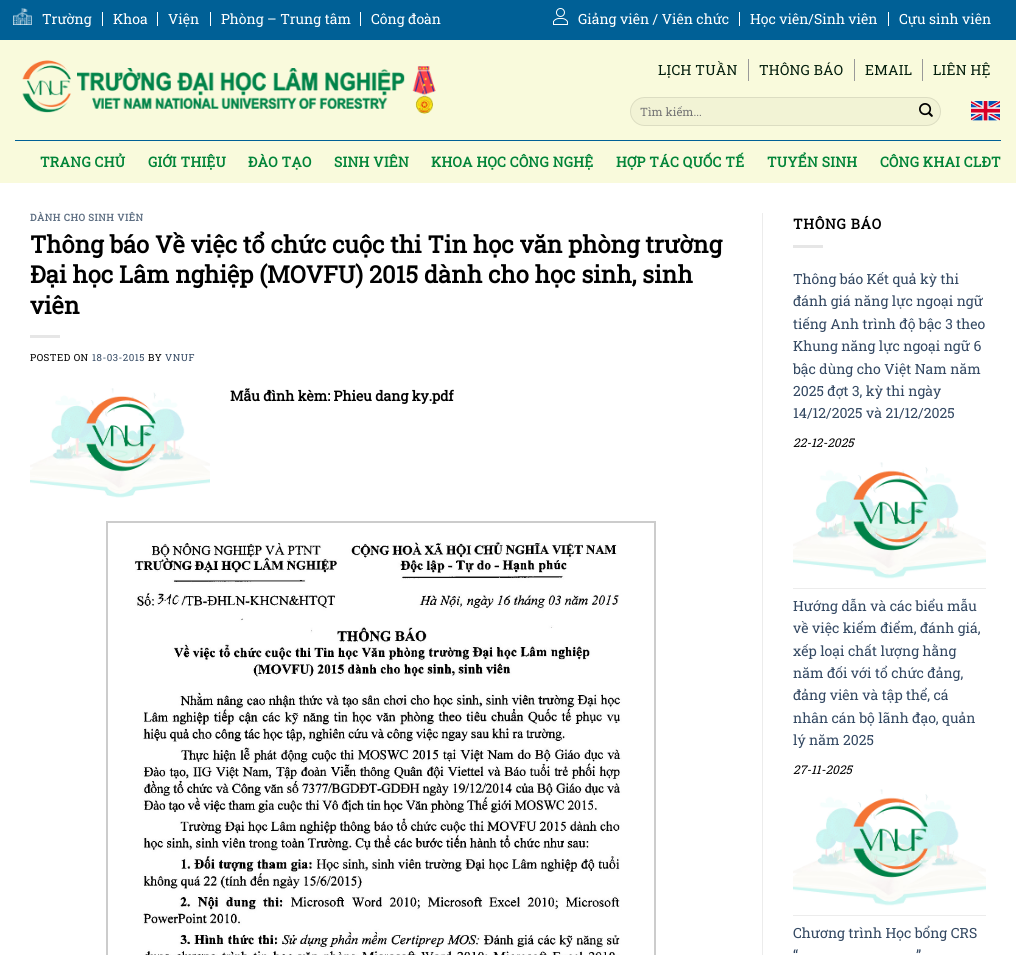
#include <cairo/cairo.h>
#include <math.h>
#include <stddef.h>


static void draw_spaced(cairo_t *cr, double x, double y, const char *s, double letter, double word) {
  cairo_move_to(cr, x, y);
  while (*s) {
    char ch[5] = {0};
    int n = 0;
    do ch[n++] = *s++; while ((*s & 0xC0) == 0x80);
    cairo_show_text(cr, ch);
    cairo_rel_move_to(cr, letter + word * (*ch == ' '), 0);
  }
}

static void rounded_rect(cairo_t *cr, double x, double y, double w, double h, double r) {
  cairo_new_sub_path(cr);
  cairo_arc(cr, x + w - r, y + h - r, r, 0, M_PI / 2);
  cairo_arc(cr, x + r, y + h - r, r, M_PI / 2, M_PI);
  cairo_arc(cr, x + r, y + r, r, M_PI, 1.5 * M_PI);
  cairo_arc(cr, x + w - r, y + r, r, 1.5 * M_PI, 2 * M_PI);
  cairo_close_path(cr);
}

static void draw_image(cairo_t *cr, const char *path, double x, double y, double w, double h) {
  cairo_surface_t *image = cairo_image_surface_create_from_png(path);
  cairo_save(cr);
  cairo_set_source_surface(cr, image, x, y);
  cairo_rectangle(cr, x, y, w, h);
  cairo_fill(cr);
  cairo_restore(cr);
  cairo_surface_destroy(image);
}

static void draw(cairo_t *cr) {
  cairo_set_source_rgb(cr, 1, 1, 1);
  cairo_paint(cr);
  cairo_set_source_rgb(cr, 249 / 255.0, 250 / 255.0, 220 / 255.0);
  cairo_rectangle(cr, 0, 40, 1016, 143);
  cairo_fill(cr);
  cairo_set_source_rgb(cr, 0, 96 / 255.0, 150 / 255.0);
  cairo_rectangle(cr, 0, 0, 1016, 40);
  cairo_fill(cr);
  draw_image(cr, "images/1.png", 13, 8, 19, 17);
  cairo_set_source_rgb(cr, 1, 1, 1);
  cairo_rectangle(cr, 102, 12, 1, 14);
  cairo_fill(cr);
  cairo_rectangle(cr, 157, 12, 1, 14);
  cairo_fill(cr);
  cairo_rectangle(cr, 210, 12, 1, 14);
  cairo_fill(cr);
  cairo_rectangle(cr, 360, 12, 1, 14);
  cairo_fill(cr);
  draw_image(cr, "images/2.png", 553, 8, 15, 17);
  cairo_rectangle(cr, 739, 12, 1, 14);
  cairo_fill(cr);
  cairo_rectangle(cr, 888, 12, 1, 14);
  cairo_fill(cr);
  draw_image(cr, "images/3.png", 22, 60, 414, 54);
  cairo_set_source_rgb(cr, 153 / 255.0, 153 / 255.0, 153 / 255.0);
  cairo_rectangle(cr, 748, 59, 1, 22);
  cairo_fill(cr);
  cairo_rectangle(cr, 854, 59, 1, 22);
  cairo_fill(cr);
  cairo_rectangle(cr, 922, 59, 1, 22);
  cairo_fill(cr);
  cairo_set_source_rgb(cr, 242 / 255.0, 243 / 255.0, 213 / 255.0);
  rounded_rect(cr, 630, 97, 311, 29, 14.5);
  cairo_fill(cr);
  rounded_rect(cr, 630.5, 97.5, 310, 28, 14);
  cairo_set_source_rgba(cr, 0, 0, 0, 0.09);
  cairo_set_line_width(cr, 1);
  cairo_stroke(cr);
  draw_image(cr, "images/4.png", 919, 103, 14, 14);
  draw_image(cr, "images/5.png", 971, 101, 29, 20);
  cairo_set_source_rgb(cr, 0, 96 / 255.0, 150 / 255.0);
  cairo_rectangle(cr, 15, 140, 986, 1);
  cairo_fill(cr);
  cairo_set_source_rgb(cr, 230 / 255.0, 230 / 255.0, 230 / 255.0);
  cairo_rectangle(cr, 30, 335, 30, 3);
  cairo_fill(cr);
  draw_image(cr, "images/6.png", 30, 388, 180, 110);
  cairo_rectangle(cr, 107, 522, 548, 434);
  cairo_set_source_rgb(cr, 204 / 255.0, 204 / 255.0, 204 / 255.0);
  cairo_set_line_width(cr, 2);
  cairo_stroke(cr);
  draw_image(cr, "images/7.png", 134, 541, 488, 414);
  cairo_set_source_rgb(cr, 236 / 255.0, 236 / 255.0, 236 / 255.0);
  cairo_rectangle(cr, 762, 213, 1, 742);
  cairo_fill(cr);
  cairo_set_source_rgb(cr, 230 / 255.0, 230 / 255.0, 230 / 255.0);
  cairo_rectangle(cr, 793, 245, 30, 3);
  cairo_fill(cr);
  draw_image(cr, "images/8.png", 793, 462, 193, 117);
  cairo_set_source_rgb(cr, 236 / 255.0, 236 / 255.0, 236 / 255.0);
  cairo_rectangle(cr, 793, 588, 193, 1);
  cairo_fill(cr);
  draw_image(cr, "images/8.png", 793, 789, 193, 117);
  cairo_rectangle(cr, 793, 915, 193, 1);
  cairo_fill(cr);
  cairo_select_font_face(cr, "Roboto Slab", CAIRO_FONT_SLANT_NORMAL, CAIRO_FONT_WEIGHT_NORMAL);
  cairo_set_font_size(cr, 14);
  cairo_set_source_rgb(cr, 1, 1, 1);
  cairo_move_to(cr, 42, 24);
  cairo_show_text(cr, "Trường");
  cairo_move_to(cr, 113, 24);
  cairo_show_text(cr, "Khoa");
  cairo_move_to(cr, 168, 24);
  cairo_show_text(cr, "Viện");
  cairo_move_to(cr, 221, 24);
  cairo_show_text(cr, "Phòng – Trung tâm");
  cairo_move_to(cr, 371, 24);
  cairo_show_text(cr, "Công đoàn");
  cairo_move_to(cr, 578, 24);
  cairo_show_text(cr, "Giảng viên / Viên chức");
  cairo_move_to(cr, 750, 24);
  cairo_show_text(cr, "Học viên/Sinh viên");
  cairo_move_to(cr, 899, 24);
  cairo_show_text(cr, "Cựu sinh viên");
  cairo_set_source_rgb(cr, 2 / 255.0, 29 / 255.0, 12 / 255.0);
  draw_spaced(cr, 658, 75, "LỊCH TUẦN", 0.25, 0);
  draw_spaced(cr, 759, 75, "THÔNG BÁO", 0.25, 0);
  draw_spaced(cr, 865, 75, "EMAIL", 0.25, 0);
  draw_spaced(cr, 933, 75, "LIÊN HỆ", 0.25, 0);
  cairo_set_font_size(cr, 11.5);
  cairo_set_source_rgb(cr, 117 / 255.0, 117 / 255.0, 117 / 255.0);
  cairo_move_to(cr, 640, 116);
  cairo_show_text(cr, "Tìm kiếm...");
  cairo_select_font_face(cr, "Roboto Slab", CAIRO_FONT_SLANT_NORMAL, CAIRO_FONT_WEIGHT_BOLD);
  cairo_set_font_size(cr, 14);
  cairo_set_source_rgb(cr, 1 / 255.0, 132 / 255.0, 56 / 255.0);
  draw_spaced(cr, 40, 167, "TRANG CHỦ", 0.25, 0);
  draw_spaced(cr, 148, 167, "GIỚI THIỆU", 0.25, 0);
  draw_spaced(cr, 248, 167, "ĐÀO TẠO", 0.25, 0);
  draw_spaced(cr, 334, 167, "SINH VIÊN", 0.25, 0);
  draw_spaced(cr, 431, 167, "KHOA HỌC CÔNG NGHỆ", 0.25, 0);
  draw_spaced(cr, 616, 167, "HỢP TÁC QUỐC TẾ", 0.25, 0);
  draw_spaced(cr, 767, 167, "TUYỂN SINH", 0.25, 0);
  draw_spaced(cr, 880, 167, "CÔNG KHAI CLĐT", 0.25, 0);
  cairo_set_font_size(cr, 9.75);
  cairo_set_source_rgb(cr, 92 / 255.0, 109 / 255.0, 129 / 255.0);
  draw_spaced(cr, 30, 221, "DÀNH CHO SINH VIÊN", 0.5, 0);
  cairo_set_font_size(cr, 23.8);
  cairo_set_source_rgb(cr, 0, 0, 0);
  cairo_move_to(cr, 30, 253);
  cairo_show_text(cr, "Thông báo Về việc tổ chức cuộc thi Tin học văn phòng trường");
  cairo_move_to(cr, 30, 283);
  cairo_show_text(cr, "Đại học Lâm nghiệp (MOVFU) 2015 dành cho học sinh, sinh");
  cairo_move_to(cr, 30, 314);
  cairo_show_text(cr, "viên");
  cairo_select_font_face(cr, "Roboto Slab", CAIRO_FONT_SLANT_NORMAL, CAIRO_FONT_WEIGHT_NORMAL);
  cairo_set_font_size(cr, 9.75);
  draw_spaced(cr, 30, 361, "POSTED ON", 0.5, 0);
  cairo_set_source_rgb(cr, 51 / 255.0, 72 / 255.0, 98 / 255.0);
  draw_spaced(cr, 92, 361, "18-03-2015", 0.5, 0);
  cairo_set_source_rgb(cr, 0, 0, 0);
  draw_spaced(cr, 148, 361, "BY", 0.5, 0);
  cairo_set_source_rgb(cr, 51 / 255.0, 72 / 255.0, 98 / 255.0);
  draw_spaced(cr, 165, 361, "VNUF", 0.5, 0);
  cairo_select_font_face(cr, "Roboto Slab", CAIRO_FONT_SLANT_NORMAL, CAIRO_FONT_WEIGHT_BOLD);
  cairo_set_font_size(cr, 14);
  cairo_set_source_rgb(cr, 0, 0, 0);
  cairo_move_to(cr, 230, 401);
  cairo_show_text(cr, "Mẫu đình kèm: Phieu dang ky.pdf");
  draw_spaced(cr, 793, 229, "THÔNG BÁO", 0.75, 0);
  cairo_select_font_face(cr, "Roboto Slab", CAIRO_FONT_SLANT_NORMAL, CAIRO_FONT_WEIGHT_NORMAL);
  cairo_set_source_rgb(cr, 51 / 255.0, 72 / 255.0, 98 / 255.0);
  cairo_move_to(cr, 793, 284);
  cairo_show_text(cr, "Thông báo Kết quả kỳ thi");
  cairo_move_to(cr, 793, 306);
  cairo_show_text(cr, "đánh giá năng lực ngoại ngữ");
  cairo_move_to(cr, 793, 329);
  cairo_show_text(cr, "tiếng Anh trình độ bậc 3 theo");
  cairo_move_to(cr, 793, 351);
  cairo_show_text(cr, "Khung năng lực ngoại ngữ 6");
  cairo_move_to(cr, 793, 374);
  cairo_show_text(cr, "bậc dùng cho Việt Nam năm");
  cairo_move_to(cr, 793, 396);
  cairo_show_text(cr, "2025 đợt 3, kỳ thi ngày");
  cairo_move_to(cr, 793, 418);
  cairo_show_text(cr, "14/12/2025 và 21/12/2025");
  cairo_select_font_face(cr, "Roboto Slab", CAIRO_FONT_SLANT_ITALIC, CAIRO_FONT_WEIGHT_NORMAL);
  cairo_set_font_size(cr, 12);
  cairo_set_source_rgb(cr, 0, 0, 0);
  cairo_move_to(cr, 793, 447);
  cairo_show_text(cr, "22-12-2025");
  cairo_select_font_face(cr, "Roboto Slab", CAIRO_FONT_SLANT_NORMAL, CAIRO_FONT_WEIGHT_NORMAL);
  cairo_set_font_size(cr, 14);
  cairo_set_source_rgb(cr, 51 / 255.0, 72 / 255.0, 98 / 255.0);
  cairo_move_to(cr, 793, 611);
  cairo_show_text(cr, "Hướng dẫn và các biểu mẫu");
  cairo_move_to(cr, 793, 633);
  cairo_show_text(cr, "về việc kiểm điểm, đánh giá,");
  cairo_move_to(cr, 793, 656);
  cairo_show_text(cr, "xếp loại chất lượng hằng");
  cairo_move_to(cr, 793, 678);
  cairo_show_text(cr, "năm đối với tổ chức đảng,");
  cairo_move_to(cr, 793, 700);
  cairo_show_text(cr, "đảng viên và tập thể, cá");
  cairo_move_to(cr, 793, 723);
  cairo_show_text(cr, "nhân cán bộ lãnh đạo, quản");
  cairo_move_to(cr, 793, 745);
  cairo_show_text(cr, "lý năm 2025");
  cairo_select_font_face(cr, "Roboto Slab", CAIRO_FONT_SLANT_ITALIC, CAIRO_FONT_WEIGHT_NORMAL);
  cairo_set_font_size(cr, 12);
  cairo_set_source_rgb(cr, 0, 0, 0);
  cairo_move_to(cr, 793, 774);
  cairo_show_text(cr, "27-11-2025");
  cairo_select_font_face(cr, "Roboto Slab", CAIRO_FONT_SLANT_NORMAL, CAIRO_FONT_WEIGHT_NORMAL);
  cairo_set_font_size(cr, 14);
  cairo_set_source_rgb(cr, 51 / 255.0, 72 / 255.0, 98 / 255.0);
  cairo_move_to(cr, 793, 938);
  cairo_show_text(cr, "Chương trình Học bổng CRS");
  cairo_move_to(cr, 793, 960);
  cairo_show_text(cr, "“");
  cairo_move_to(cr, 916, 960);
  cairo_show_text(cr, "”");
}

int main(void) {
  cairo_surface_t *surface = cairo_image_surface_create(CAIRO_FORMAT_RGB24, 1016, 955);
  cairo_t *cr = cairo_create(surface);
  cairo_font_options_t *options = cairo_font_options_create();
  cairo_font_options_set_hint_metrics(options, CAIRO_HINT_METRICS_OFF);
  cairo_font_options_set_hint_style(options, CAIRO_HINT_STYLE_NONE);
  cairo_set_font_options(cr, options);
  cairo_set_miter_limit(cr, 4);
  draw(cr);
  cairo_surface_write_to_png(surface, "out.png");
  cairo_font_options_destroy(options);
  cairo_destroy(cr);
  cairo_surface_destroy(surface);
  return 0;
}
